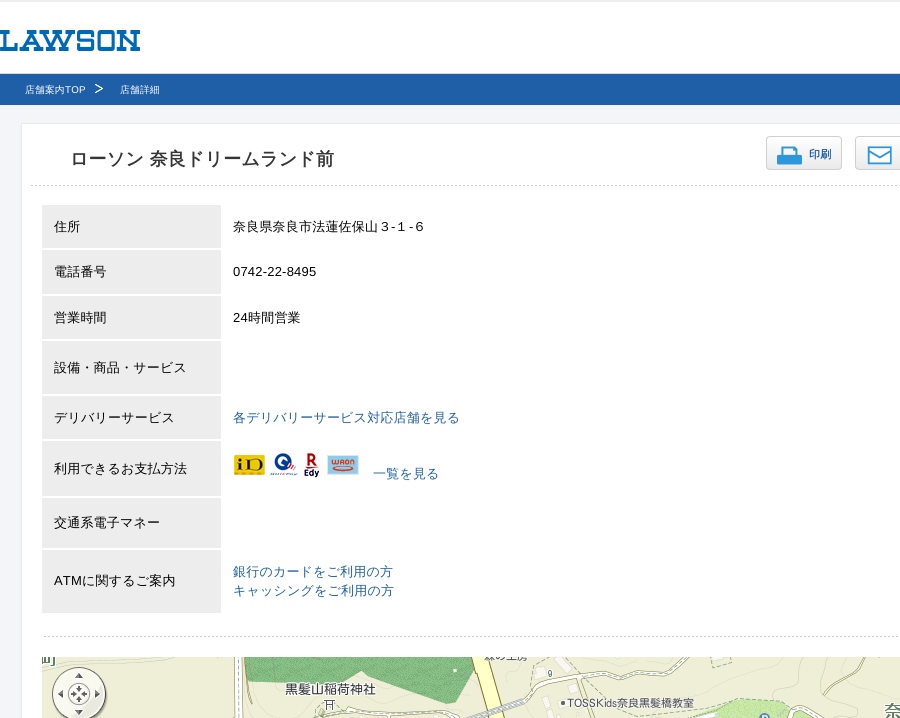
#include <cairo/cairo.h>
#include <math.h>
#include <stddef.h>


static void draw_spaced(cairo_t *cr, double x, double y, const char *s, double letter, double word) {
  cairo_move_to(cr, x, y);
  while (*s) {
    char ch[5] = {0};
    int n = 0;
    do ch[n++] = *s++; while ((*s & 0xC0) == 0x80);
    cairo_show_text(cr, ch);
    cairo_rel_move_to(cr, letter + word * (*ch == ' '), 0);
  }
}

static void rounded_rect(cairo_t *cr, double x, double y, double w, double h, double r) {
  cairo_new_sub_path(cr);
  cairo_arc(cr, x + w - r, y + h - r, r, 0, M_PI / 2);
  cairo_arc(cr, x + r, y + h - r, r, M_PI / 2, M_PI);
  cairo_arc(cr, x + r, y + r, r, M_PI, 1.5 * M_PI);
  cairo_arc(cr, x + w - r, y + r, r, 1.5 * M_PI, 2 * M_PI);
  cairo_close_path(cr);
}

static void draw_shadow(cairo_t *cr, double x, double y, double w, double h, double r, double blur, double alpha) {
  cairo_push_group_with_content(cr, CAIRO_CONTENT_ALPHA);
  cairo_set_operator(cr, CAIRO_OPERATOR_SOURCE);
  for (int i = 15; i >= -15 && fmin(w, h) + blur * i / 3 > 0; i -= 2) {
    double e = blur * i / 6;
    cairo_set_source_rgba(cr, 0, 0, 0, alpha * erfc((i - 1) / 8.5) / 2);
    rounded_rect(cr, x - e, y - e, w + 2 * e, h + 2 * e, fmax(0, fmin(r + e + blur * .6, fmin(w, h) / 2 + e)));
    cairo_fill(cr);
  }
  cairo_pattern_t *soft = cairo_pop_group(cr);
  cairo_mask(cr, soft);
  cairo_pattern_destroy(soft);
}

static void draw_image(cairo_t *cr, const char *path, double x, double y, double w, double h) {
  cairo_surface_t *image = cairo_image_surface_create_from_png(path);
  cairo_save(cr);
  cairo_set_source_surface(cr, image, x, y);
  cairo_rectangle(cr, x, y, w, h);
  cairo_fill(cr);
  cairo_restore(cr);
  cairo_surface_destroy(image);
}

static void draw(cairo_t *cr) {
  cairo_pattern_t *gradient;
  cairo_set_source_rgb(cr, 243 / 255.0, 245 / 255.0, 248 / 255.0);
  cairo_paint(cr);
  cairo_set_source_rgb(cr, 1, 1, 1);
  cairo_rectangle(cr, 0, 2, 900, 71);
  cairo_fill(cr);
  cairo_set_source_rgb(cr, 238 / 255.0, 238 / 255.0, 238 / 255.0);
  cairo_rectangle(cr, 0, 0, 900, 2);
  cairo_fill(cr);
  cairo_set_source_rgb(cr, 217 / 255.0, 217 / 255.0, 217 / 255.0);
  cairo_rectangle(cr, 0, 73, 900, 1);
  cairo_fill(cr);
  draw_image(cr, "images/1.png", 0, 30, 140, 21);
  cairo_set_source_rgb(cr, 31 / 255.0, 95 / 255.0, 168 / 255.0);
  cairo_rectangle(cr, 0, 74, 900, 31);
  cairo_fill(cr);
  draw_image(cr, "images/2.png", 95, 84, 8, 9);
  cairo_set_source_rgb(cr, 234 / 255.0, 234 / 255.0, 234 / 255.0);
  draw_shadow(cr, 21, 124, 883, 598, 1, 1, 1);
  cairo_set_source_rgb(cr, 1, 1, 1);
  rounded_rect(cr, 21.5, 123.5, 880, 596, 0.5);
  cairo_fill_preserve(cr);
  cairo_set_source_rgb(cr, 234 / 255.0, 234 / 255.0, 234 / 255.0);
  cairo_set_line_width(cr, 1);
  cairo_stroke(cr);
  draw_image(cr, "images/3.png", 31, 185, 869, 1);
  cairo_save(cr);
  rounded_rect(cr, 766, 136, 76, 34, 4);
  cairo_clip(cr);
  gradient = cairo_pattern_create_linear(804, 169, 804, 137);
  cairo_pattern_add_color_stop_rgba(gradient, 0, 234 / 255.0, 234 / 255.0, 234 / 255.0, 1);
  cairo_pattern_add_color_stop_rgba(gradient, 1, 1, 1, 1, 1);
  cairo_set_source(cr, gradient);
  cairo_pattern_destroy(gradient);
  cairo_rectangle(cr, 766, 137, 76, 32);
  cairo_fill(cr);
  cairo_restore(cr);
  rounded_rect(cr, 766.5, 136.5, 75, 33, 3.5);
  cairo_set_source_rgb(cr, 208 / 255.0, 208 / 255.0, 208 / 255.0);
  cairo_stroke(cr);
  draw_image(cr, "images/4.png", 777, 146, 25, 19);
  cairo_save(cr);
  rounded_rect(cr, 855, 136, 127, 34, 4);
  cairo_clip(cr);
  gradient = cairo_pattern_create_linear(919, 169, 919, 137);
  cairo_pattern_add_color_stop_rgba(gradient, 0, 234 / 255.0, 234 / 255.0, 234 / 255.0, 1);
  cairo_pattern_add_color_stop_rgba(gradient, 1, 1, 1, 1, 1);
  cairo_set_source(cr, gradient);
  cairo_pattern_destroy(gradient);
  cairo_rectangle(cr, 855, 137, 45, 32);
  cairo_fill(cr);
  cairo_restore(cr);
  rounded_rect(cr, 855.5, 136.5, 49, 33, 3.5);
  cairo_stroke(cr);
  draw_image(cr, "images/5.png", 867, 146, 25, 19);
  cairo_set_source_rgb(cr, 237 / 255.0, 237 / 255.0, 237 / 255.0);
  cairo_rectangle(cr, 42, 205, 179, 43);
  cairo_fill(cr);
  cairo_rectangle(cr, 42, 250, 179, 44);
  cairo_fill(cr);
  cairo_rectangle(cr, 42, 296, 179, 43);
  cairo_fill(cr);
  cairo_rectangle(cr, 42, 341, 179, 53);
  cairo_fill(cr);
  cairo_rectangle(cr, 42, 396, 179, 43);
  cairo_fill(cr);
  cairo_rectangle(cr, 42, 441, 179, 55);
  cairo_fill(cr);
  draw_image(cr, "images/6.png", 234, 453, 125, 25);
  cairo_rectangle(cr, 42, 498, 179, 50);
  cairo_fill(cr);
  cairo_rectangle(cr, 42, 550, 179, 63);
  cairo_fill(cr);
  draw_image(cr, "images/7.png", 44, 636, 854, 1);
  draw_image(cr, "images/8.png", 42, 657, 97, 61);
  draw_image(cr, "images/9.png", 139, 657, 256, 61);
  draw_image(cr, "images/10.png", 395, 657, 256, 61);
  draw_image(cr, "images/11.png", 651, 657, 249, 61);
  draw_image(cr, "images/12.png", 52, 667, 56, 51);
  cairo_select_font_face(cr, "WenQuanYi Zen Hei Medium", CAIRO_FONT_SLANT_NORMAL, CAIRO_FONT_WEIGHT_NORMAL);
  cairo_set_font_size(cr, 9.75);
  cairo_set_source_rgb(cr, 1, 1, 1);
  draw_spaced(cr, 25, 93, "店舗案内", 0.2, 0);
  cairo_select_font_face(cr, "Liberation Sans", CAIRO_FONT_SLANT_NORMAL, CAIRO_FONT_WEIGHT_NORMAL);
  draw_spaced(cr, 65, 93, "TOP", 0.2, 0);
  cairo_select_font_face(cr, "WenQuanYi Zen Hei Medium", CAIRO_FONT_SLANT_NORMAL, CAIRO_FONT_WEIGHT_NORMAL);
  draw_spaced(cr, 120, 93, "店舗詳細", 0.2, 0);
  cairo_select_font_face(cr, "WenQuanYi Zen Hei", CAIRO_FONT_SLANT_NORMAL, CAIRO_FONT_WEIGHT_BOLD);
  cairo_set_font_size(cr, 18);
  cairo_set_source_rgb(cr, 54 / 255.0, 54 / 255.0, 54 / 255.0);
  draw_spaced(cr, 70, 165, "ローソン 奈良ドリームランド前", 0.2, 0);
  cairo_set_font_size(cr, 11);
  cairo_set_source_rgb(cr, 31 / 255.0, 95 / 255.0, 168 / 255.0);
  draw_spaced(cr, 809, 158, "印刷", 0.2, 0);
  cairo_select_font_face(cr, "WenQuanYi Zen Hei Medium", CAIRO_FONT_SLANT_NORMAL, CAIRO_FONT_WEIGHT_NORMAL);
  cairo_set_font_size(cr, 13);
  cairo_set_source_rgb(cr, 0, 0, 0);
  draw_spaced(cr, 54, 231, "住所", 0.2, 0);
  draw_spaced(cr, 233, 231, "奈良県奈良市法蓮佐保山３", 0.2, 0);
  cairo_select_font_face(cr, "Liberation Sans", CAIRO_FONT_SLANT_NORMAL, CAIRO_FONT_WEIGHT_NORMAL);
  draw_spaced(cr, 391, 231, "‐", 0.2, 0);
  cairo_select_font_face(cr, "WenQuanYi Zen Hei Medium", CAIRO_FONT_SLANT_NORMAL, CAIRO_FONT_WEIGHT_NORMAL);
  draw_spaced(cr, 395, 231, "１", 0.2, 0);
  cairo_select_font_face(cr, "Liberation Sans", CAIRO_FONT_SLANT_NORMAL, CAIRO_FONT_WEIGHT_NORMAL);
  draw_spaced(cr, 409, 231, "‐", 0.2, 0);
  cairo_select_font_face(cr, "WenQuanYi Zen Hei Medium", CAIRO_FONT_SLANT_NORMAL, CAIRO_FONT_WEIGHT_NORMAL);
  draw_spaced(cr, 413, 231, "６", 0.2, 0);
  draw_spaced(cr, 54, 276, "電話番号", 0.2, 0);
  cairo_select_font_face(cr, "Liberation Sans", CAIRO_FONT_SLANT_NORMAL, CAIRO_FONT_WEIGHT_NORMAL);
  draw_spaced(cr, 233, 276, "0742-22-8495", 0.2, 0);
  cairo_select_font_face(cr, "WenQuanYi Zen Hei Medium", CAIRO_FONT_SLANT_NORMAL, CAIRO_FONT_WEIGHT_NORMAL);
  draw_spaced(cr, 54, 322, "営業時間", 0.2, 0);
  cairo_select_font_face(cr, "Liberation Sans", CAIRO_FONT_SLANT_NORMAL, CAIRO_FONT_WEIGHT_NORMAL);
  draw_spaced(cr, 233, 322, "24", 0.2, 0);
  cairo_select_font_face(cr, "WenQuanYi Zen Hei Medium", CAIRO_FONT_SLANT_NORMAL, CAIRO_FONT_WEIGHT_NORMAL);
  draw_spaced(cr, 248, 322, "時間営業", 0.2, 0);
  draw_spaced(cr, 54, 372, "設備・商品・サービス", 0.2, 0);
  draw_spaced(cr, 54, 422, "デリバリーサービス", 0.2, 0);
  cairo_set_source_rgb(cr, 31 / 255.0, 95 / 255.0, 168 / 255.0);
  draw_spaced(cr, 233, 422, "各デリバリーサービス対応店舗を見る", 0.2, 0);
  cairo_set_source_rgb(cr, 0, 0, 0);
  draw_spaced(cr, 54, 473, "利用できるお支払方法", 0.2, 0);
  cairo_set_source_rgb(cr, 31 / 255.0, 95 / 255.0, 168 / 255.0);
  draw_spaced(cr, 373, 478, "一覧を見る", 0.2, 0);
  cairo_set_source_rgb(cr, 0, 0, 0);
  draw_spaced(cr, 54, 527, "交通系電子マネー", 0.2, 0);
  cairo_select_font_face(cr, "Liberation Sans", CAIRO_FONT_SLANT_NORMAL, CAIRO_FONT_WEIGHT_NORMAL);
  draw_spaced(cr, 54, 585, "ATM", 0.2, 0);
  cairo_select_font_face(cr, "WenQuanYi Zen Hei Medium", CAIRO_FONT_SLANT_NORMAL, CAIRO_FONT_WEIGHT_NORMAL);
  draw_spaced(cr, 82, 585, "に関するご案内", 0.2, 0);
  cairo_set_source_rgb(cr, 31 / 255.0, 95 / 255.0, 168 / 255.0);
  draw_spaced(cr, 233, 576, "銀行のカードをご利用の方", 0.2, 0);
  draw_spaced(cr, 233, 595, "キャッシングをご利用の方", 0.2, 0);
}

int main(void) {
  cairo_surface_t *surface = cairo_image_surface_create(CAIRO_FORMAT_RGB24, 900, 718);
  cairo_t *cr = cairo_create(surface);
  cairo_font_options_t *options = cairo_font_options_create();
  cairo_font_options_set_hint_metrics(options, CAIRO_HINT_METRICS_OFF);
  cairo_font_options_set_hint_style(options, CAIRO_HINT_STYLE_NONE);
  cairo_set_font_options(cr, options);
  cairo_set_miter_limit(cr, 4);
  draw(cr);
  cairo_surface_write_to_png(surface, "out.png");
  cairo_font_options_destroy(options);
  cairo_destroy(cr);
  cairo_surface_destroy(surface);
  return 0;
}
